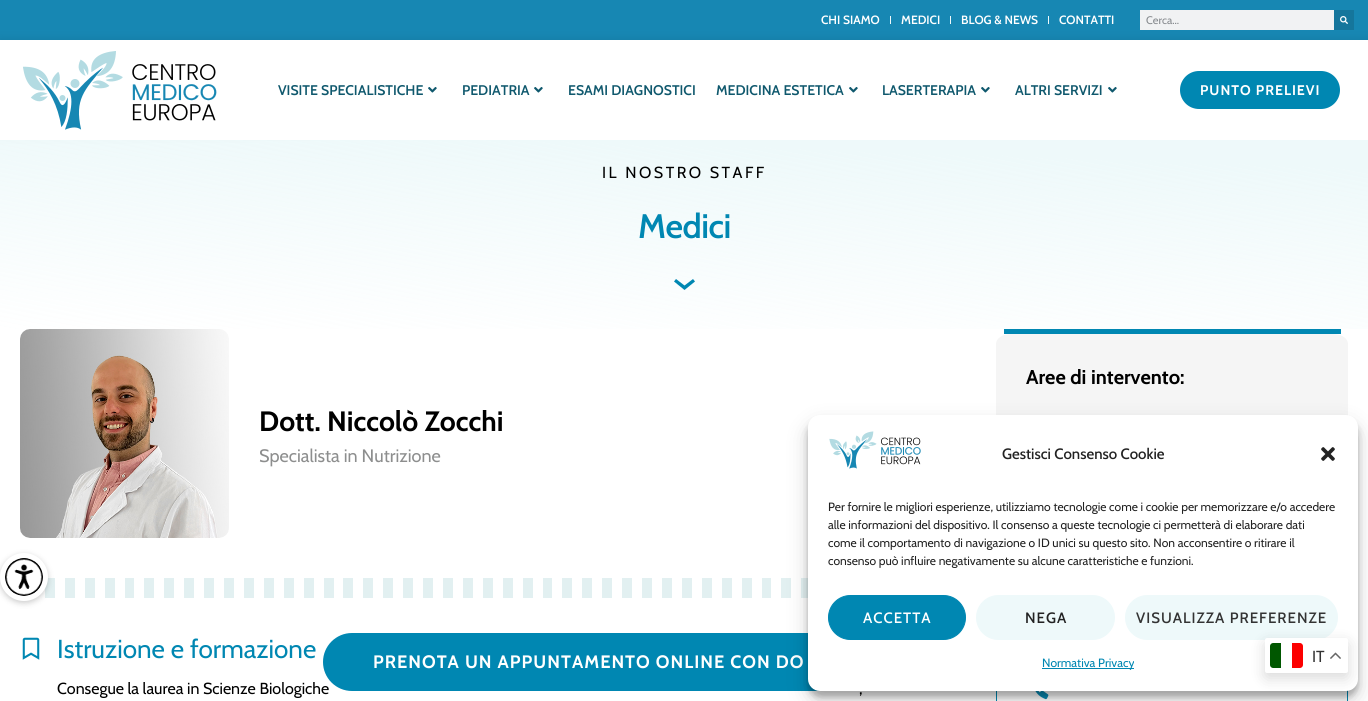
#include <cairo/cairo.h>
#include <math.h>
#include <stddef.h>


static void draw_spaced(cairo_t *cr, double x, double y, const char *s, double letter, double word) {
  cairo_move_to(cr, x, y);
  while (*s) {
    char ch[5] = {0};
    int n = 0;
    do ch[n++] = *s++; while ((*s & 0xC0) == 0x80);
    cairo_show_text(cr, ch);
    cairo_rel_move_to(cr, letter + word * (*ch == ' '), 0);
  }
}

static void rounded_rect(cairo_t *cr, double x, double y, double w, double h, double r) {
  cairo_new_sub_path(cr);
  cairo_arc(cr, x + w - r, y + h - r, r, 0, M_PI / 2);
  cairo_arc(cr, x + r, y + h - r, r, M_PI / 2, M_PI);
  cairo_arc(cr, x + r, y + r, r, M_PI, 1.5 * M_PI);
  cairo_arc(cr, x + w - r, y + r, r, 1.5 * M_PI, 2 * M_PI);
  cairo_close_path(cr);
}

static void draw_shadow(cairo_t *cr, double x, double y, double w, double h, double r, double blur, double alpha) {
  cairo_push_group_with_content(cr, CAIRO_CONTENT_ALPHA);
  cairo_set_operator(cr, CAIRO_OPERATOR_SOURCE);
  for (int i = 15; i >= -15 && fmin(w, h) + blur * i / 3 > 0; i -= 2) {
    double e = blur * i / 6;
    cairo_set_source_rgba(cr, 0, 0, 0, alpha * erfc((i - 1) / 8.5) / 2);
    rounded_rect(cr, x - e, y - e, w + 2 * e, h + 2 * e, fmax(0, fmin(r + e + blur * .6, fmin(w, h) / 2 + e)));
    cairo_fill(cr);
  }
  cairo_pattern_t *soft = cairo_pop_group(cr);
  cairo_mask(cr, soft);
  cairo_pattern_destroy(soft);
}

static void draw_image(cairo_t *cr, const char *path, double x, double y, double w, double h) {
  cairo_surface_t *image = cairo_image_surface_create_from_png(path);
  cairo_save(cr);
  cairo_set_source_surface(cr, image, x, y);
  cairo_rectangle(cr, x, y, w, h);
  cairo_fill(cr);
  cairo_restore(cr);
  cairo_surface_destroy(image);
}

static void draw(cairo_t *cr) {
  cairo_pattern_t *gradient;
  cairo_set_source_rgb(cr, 1, 1, 1);
  cairo_paint(cr);
  cairo_set_source_rgb(cr, 23 / 255.0, 135 / 255.0, 179 / 255.0);
  cairo_rectangle(cr, 0, 0, 1368, 40);
  cairo_fill(cr);
  cairo_set_source_rgb(cr, 238 / 255.0, 249 / 255.0, 250 / 255.0);
  cairo_rectangle(cr, 890, 16, 1, 8);
  cairo_fill(cr);
  cairo_rectangle(cr, 950, 16, 1, 8);
  cairo_fill(cr);
  cairo_rectangle(cr, 1048, 16, 1, 8);
  cairo_fill(cr);
  cairo_set_source_rgb(cr, 241 / 255.0, 242 / 255.0, 243 / 255.0);
  cairo_rectangle(cr, 1140, 10, 194, 20);
  cairo_fill(cr);
  cairo_set_source_rgb(cr, 21 / 255.0, 118 / 255.0, 156 / 255.0);
  cairo_rectangle(cr, 1334, 10, 20, 20);
  cairo_fill(cr);
  draw_image(cr, "images/1.png", 1340, 16, 8, 8);
  cairo_save(cr);
  cairo_set_fill_rule(cr, CAIRO_FILL_RULE_EVEN_ODD);
  cairo_new_path(cr);
  cairo_move_to(cr, 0, 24);
  cairo_line_to(cr, 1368, 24);
  cairo_line_to(cr, 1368, 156);
  cairo_line_to(cr, 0, 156);
  cairo_close_path(cr);
  cairo_move_to(cr, 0, 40);
  cairo_line_to(cr, 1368, 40);
  cairo_line_to(cr, 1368, 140);
  cairo_line_to(cr, 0, 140);
  cairo_close_path(cr);
  cairo_clip(cr);
  cairo_set_source_rgb(cr, 0, 0, 0);
  draw_shadow(cr, 0, 40, 1368, 100, 0, 5, 0.1);
  cairo_restore(cr);
  draw_image(cr, "images/2.png", 23, 51, 194, 79);
  draw_image(cr, "images/3.png", 428, 87, 9, 6);
  draw_image(cr, "images/3.png", 534, 87, 9, 6);
  draw_image(cr, "images/3.png", 849, 87, 9, 6);
  draw_image(cr, "images/3.png", 981, 87, 9, 6);
  draw_image(cr, "images/3.png", 1108, 87, 9, 6);
  cairo_set_source_rgb(cr, 0, 135 / 255.0, 178 / 255.0);
  rounded_rect(cr, 1180, 71, 160, 38, 19);
  cairo_fill(cr);
  gradient = cairo_pattern_create_linear(688, 116, 680, 353);
  cairo_pattern_add_color_stop_rgba(gradient, 0.12, 238 / 255.0, 249 / 255.0, 250 / 255.0, 1);
  cairo_pattern_add_color_stop_rgba(gradient, 1, 238 / 255.0, 249 / 255.0, 250 / 255.0, 0);
  cairo_set_source(cr, gradient);
  cairo_pattern_destroy(gradient);
  cairo_rectangle(cr, 0, 140, 1368, 189);
  cairo_fill(cr);
  cairo_set_source_rgb(cr, 0, 135 / 255.0, 178 / 255.0);
  cairo_new_path(cr);
  cairo_move_to(cr, 684.5, 290);
  cairo_line_to(cr, 674, 281.5);
  cairo_line_to(cr, 676, 279);
  cairo_line_to(cr, 684.5, 285.5);
  cairo_line_to(cr, 693, 279);
  cairo_line_to(cr, 695, 281.5);
  cairo_close_path(cr);
  cairo_fill(cr);
  cairo_set_source_rgb(cr, 245 / 255.0, 245 / 255.0, 245 / 255.0);
  cairo_new_path(cr);
  cairo_move_to(cr, 1011, 334);
  cairo_line_to(cr, 1333, 334);
  cairo_curve_to(cr, 1341, 334, 1348, 338, 1348, 344);
  cairo_line_to(cr, 1348, 459);
  cairo_curve_to(cr, 1348, 467, 1341, 474, 1333, 474);
  cairo_line_to(cr, 1011, 474);
  cairo_curve_to(cr, 1003, 474, 996, 467, 996, 459);
  cairo_line_to(cr, 996, 344);
  cairo_curve_to(cr, 996, 338, 1003, 334, 1011, 334);
  cairo_close_path(cr);
  cairo_fill(cr);
  cairo_set_source_rgb(cr, 0, 135 / 255.0, 178 / 255.0);
  cairo_rectangle(cr, 1004, 329, 337, 5);
  cairo_fill(cr);
  cairo_rectangle(cr, 996.5, 529.5, 351, 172);
  cairo_set_line_width(cr, 1);
  cairo_stroke(cr);
  draw_image(cr, "images/4.png", 1035, 691, 14, 9);
  draw_image(cr, "images/5.png", 20, 329, 209, 209);
  draw_image(cr, "images/6.png", 45, 578, 763, 20);
  draw_image(cr, "images/7.png", 22, 637, 18, 23);
  cairo_set_source_rgb(cr, 0, 0, 0);
  draw_shadow(cr, 0, 555, 48, 48, 24, 3, 0.2);
  cairo_set_source_rgb(cr, 1, 1, 1);
  cairo_arc(cr, 24, 577, 24, 0, 2 * M_PI);
  cairo_fill(cr);
  draw_image(cr, "images/8.png", 5, 558, 38, 38);
  cairo_select_font_face(cr, "Cabin SemiBold", CAIRO_FONT_SLANT_NORMAL, CAIRO_FONT_WEIGHT_NORMAL);
  cairo_set_font_size(cr, 12);
  cairo_move_to(cr, 821, 24);
  cairo_show_text(cr, "CHI SIAMO");
  cairo_move_to(cr, 901, 24);
  cairo_show_text(cr, "MEDICI");
  cairo_move_to(cr, 961, 24);
  cairo_show_text(cr, "BLOG & NEWS");
  cairo_move_to(cr, 1059, 24);
  cairo_show_text(cr, "CONTATTI");
  cairo_select_font_face(cr, "Cabin", CAIRO_FONT_SLANT_NORMAL, CAIRO_FONT_WEIGHT_NORMAL);
  cairo_set_font_size(cr, 11);
  cairo_set_source_rgb(cr, 134 / 255.0, 138 / 255.0, 142 / 255.0);
  cairo_move_to(cr, 1146, 24);
  cairo_show_text(cr, "Cerca...");
  cairo_select_font_face(cr, "Cabin SemiBold", CAIRO_FONT_SLANT_NORMAL, CAIRO_FONT_WEIGHT_NORMAL);
  cairo_set_font_size(cr, 14);
  cairo_set_source_rgb(cr, 15 / 255.0, 88 / 255.0, 109 / 255.0);
  cairo_move_to(cr, 278, 95);
  cairo_show_text(cr, "VISITE SPECIALISTICHE");
  cairo_move_to(cr, 462, 95);
  cairo_show_text(cr, "PEDIATRIA");
  cairo_move_to(cr, 568, 95);
  cairo_show_text(cr, "ESAMI DIAGNOSTICI");
  cairo_move_to(cr, 716, 95);
  cairo_show_text(cr, "MEDICINA ESTETICA");
  cairo_move_to(cr, 882, 95);
  cairo_show_text(cr, "LASERTERAPIA");
  cairo_move_to(cr, 1015, 95);
  cairo_show_text(cr, "ALTRI SERVIZI");
  cairo_select_font_face(cr, "Cabin", CAIRO_FONT_SLANT_NORMAL, CAIRO_FONT_WEIGHT_BOLD);
  cairo_set_source_rgb(cr, 1, 1, 1);
  draw_spaced(cr, 1200, 95, "PUNTO PRELIEVI", 1, 0);
  cairo_select_font_face(cr, "Cabin", CAIRO_FONT_SLANT_NORMAL, CAIRO_FONT_WEIGHT_NORMAL);
  cairo_set_font_size(cr, 16);
  cairo_set_source_rgb(cr, 0, 0, 0);
  draw_spaced(cr, 602, 178, "IL NOSTRO STAFF", 2.5, 0);
  cairo_select_font_face(cr, "Cabin SemiBold", CAIRO_FONT_SLANT_NORMAL, CAIRO_FONT_WEIGHT_NORMAL);
  cairo_set_font_size(cr, 34);
  cairo_set_source_rgb(cr, 0, 135 / 255.0, 178 / 255.0);
  draw_spaced(cr, 638, 238, "Medici", -0.5, 0);
  cairo_select_font_face(cr, "Cabin", CAIRO_FONT_SLANT_NORMAL, CAIRO_FONT_WEIGHT_BOLD);
  cairo_set_font_size(cr, 20);
  cairo_set_source_rgb(cr, 0, 0, 0);
  cairo_move_to(cr, 1026, 384);
  cairo_show_text(cr, "Aree di intervento:");
  cairo_set_font_size(cr, 28);
  cairo_move_to(cr, 259, 431);
  cairo_show_text(cr, "Dott. Niccolò Zocchi");
  cairo_select_font_face(cr, "Cabin", CAIRO_FONT_SLANT_NORMAL, CAIRO_FONT_WEIGHT_NORMAL);
  cairo_set_font_size(cr, 18);
  cairo_set_source_rgb(cr, 141 / 255.0, 142 / 255.0, 142 / 255.0);
  cairo_move_to(cr, 259, 462);
  cairo_show_text(cr, "Specialista in Nutrizione");
  cairo_set_font_size(cr, 26);
  cairo_set_source_rgb(cr, 0, 135 / 255.0, 178 / 255.0);
  cairo_move_to(cr, 57, 658);
  cairo_show_text(cr, "Istruzione e formazione");
  cairo_set_font_size(cr, 16);
  cairo_set_source_rgb(cr, 0, 0, 0);
  cairo_move_to(cr, 57, 694);
  cairo_show_text(cr, "Consegue la laurea in Scienze Biologiche");
  cairo_move_to(cr, 859, 694);
  cairo_show_text(cr, ",");
  cairo_set_source_rgb(cr, 0, 135 / 255.0, 178 / 255.0);
  rounded_rect(cr, 323, 633, 722, 58, 29);
  cairo_fill(cr);
  cairo_select_font_face(cr, "Cabin", CAIRO_FONT_SLANT_NORMAL, CAIRO_FONT_WEIGHT_BOLD);
  cairo_set_font_size(cr, 18);
  cairo_set_source_rgb(cr, 1, 1, 1);
  draw_spaced(cr, 373, 668, "PRENOTA UN APPUNTAMENTO ONLINE CON DO", 1, 0);
  cairo_set_source_rgb(cr, 0, 0, 0);
  draw_shadow(cr, 808, 421, 550, 276, 12, 3, 0.23);
  draw_shadow(cr, 808, 425, 550, 276, 12, 10, 0.19);
  cairo_set_source_rgb(cr, 1, 1, 1);
  rounded_rect(cr, 808, 415, 550, 276, 12);
  cairo_fill(cr);
  draw_image(cr, "images/9.png", 829, 431, 92, 38);
  cairo_select_font_face(cr, "Cabin Medium", CAIRO_FONT_SLANT_NORMAL, CAIRO_FONT_WEIGHT_NORMAL);
  cairo_set_font_size(cr, 15);
  cairo_set_source_rgb(cr, 34 / 255.0, 34 / 255.0, 34 / 255.0);
  cairo_move_to(cr, 1002, 459);
  cairo_show_text(cr, "Gestisci Consenso Cookie");
  draw_image(cr, "images/10.png", 1321, 447, 14, 14);
  cairo_select_font_face(cr, "Cabin", CAIRO_FONT_SLANT_NORMAL, CAIRO_FONT_WEIGHT_NORMAL);
  cairo_set_font_size(cr, 12);
  cairo_move_to(cr, 828, 511);
  cairo_show_text(cr, "Per fornire le migliori esperienze, utilizziamo tecnologie come i cookie per memorizzare e/o accedere");
  cairo_move_to(cr, 828, 529);
  cairo_show_text(cr, "alle informazioni del dispositivo. Il consenso a queste tecnologie ci permetterà di elaborare dati");
  cairo_move_to(cr, 828, 547);
  cairo_show_text(cr, "come il comportamento di navigazione o ID unici su questo sito. Non acconsentire o ritirare il");
  cairo_move_to(cr, 828, 565);
  cairo_show_text(cr, "consenso può influire negativamente su alcune caratteristiche e funzioni.");
  cairo_set_source_rgb(cr, 0, 135 / 255.0, 178 / 255.0);
  rounded_rect(cr, 828.5, 595.5, 137, 44, 22);
  cairo_fill_preserve(cr);
  cairo_stroke(cr);
  cairo_select_font_face(cr, "Cabin Medium", CAIRO_FONT_SLANT_NORMAL, CAIRO_FONT_WEIGHT_NORMAL);
  cairo_set_font_size(cr, 15);
  cairo_set_source_rgb(cr, 1, 1, 1);
  draw_spaced(cr, 863, 623, "ACCETTA", 1, 0);
  cairo_set_source_rgb(cr, 238 / 255.0, 249 / 255.0, 250 / 255.0);
  rounded_rect(cr, 976.5, 595.5, 138, 44, 22);
  cairo_fill_preserve(cr);
  cairo_stroke(cr);
  cairo_set_source_rgb(cr, 34 / 255.0, 34 / 255.0, 34 / 255.0);
  draw_spaced(cr, 1025, 623, "NEGA", 1, 0);
  cairo_set_source_rgb(cr, 238 / 255.0, 249 / 255.0, 250 / 255.0);
  rounded_rect(cr, 1125.5, 595.5, 212, 44, 22);
  cairo_fill_preserve(cr);
  cairo_stroke(cr);
  cairo_set_source_rgb(cr, 51 / 255.0, 51 / 255.0, 51 / 255.0);
  draw_spaced(cr, 1136, 623, "VISUALIZZA PREFERENZE", 1, 0);
  cairo_set_source_rgb(cr, 0, 135 / 255.0, 178 / 255.0);
  cairo_rectangle(cr, 1042, 668, 92, 1);
  cairo_fill(cr);
  cairo_select_font_face(cr, "Cabin", CAIRO_FONT_SLANT_NORMAL, CAIRO_FONT_WEIGHT_NORMAL);
  cairo_set_font_size(cr, 12);
  cairo_move_to(cr, 1042, 667);
  cairo_show_text(cr, "Normativa Privacy");
  cairo_set_source_rgb(cr, 0, 0, 0);
  draw_shadow(cr, 1265, 643, 83, 35, 2, 7.5, 0.15);
  cairo_set_source_rgb(cr, 1, 1, 1);
  rounded_rect(cr, 1265, 638, 83, 35, 2);
  cairo_fill(cr);
  cairo_set_source_rgb(cr, 0, 87 / 255.0, 0);
  cairo_new_path(cr);
  cairo_move_to(cr, 1273, 643);
  cairo_line_to(cr, 1281, 643);
  cairo_line_to(cr, 1281, 668);
  cairo_line_to(cr, 1273, 668);
  cairo_curve_to(cr, 1271.5, 668, 1270, 666.5, 1270, 665);
  cairo_line_to(cr, 1270, 646);
  cairo_curve_to(cr, 1270, 644.5, 1271.5, 643, 1273, 643);
  cairo_close_path(cr);
  cairo_fill(cr);
  cairo_set_source_rgb(cr, 252 / 255.0, 0, 0);
  cairo_new_path(cr);
  cairo_move_to(cr, 1292, 643);
  cairo_line_to(cr, 1300, 643);
  cairo_curve_to(cr, 1301.5, 643, 1303, 644.5, 1303, 646);
  cairo_line_to(cr, 1303, 665);
  cairo_curve_to(cr, 1303, 666.5, 1301.5, 668, 1300, 668);
  cairo_line_to(cr, 1292, 668);
  cairo_close_path(cr);
  cairo_fill(cr);
  cairo_set_font_size(cr, 16);
  cairo_set_source_rgb(cr, 51 / 255.0, 51 / 255.0, 51 / 255.0);
  cairo_move_to(cr, 1312, 662);
  cairo_show_text(cr, "IT");
  draw_image(cr, "images/11.png", 1330, 652, 11, 7);
}

int main(void) {
  cairo_surface_t *surface = cairo_image_surface_create(CAIRO_FORMAT_RGB24, 1368, 701);
  cairo_t *cr = cairo_create(surface);
  cairo_font_options_t *options = cairo_font_options_create();
  cairo_font_options_set_hint_metrics(options, CAIRO_HINT_METRICS_OFF);
  cairo_font_options_set_hint_style(options, CAIRO_HINT_STYLE_NONE);
  cairo_set_font_options(cr, options);
  cairo_set_miter_limit(cr, 4);
  draw(cr);
  cairo_surface_write_to_png(surface, "out.png");
  cairo_font_options_destroy(options);
  cairo_destroy(cr);
  cairo_surface_destroy(surface);
  return 0;
}
